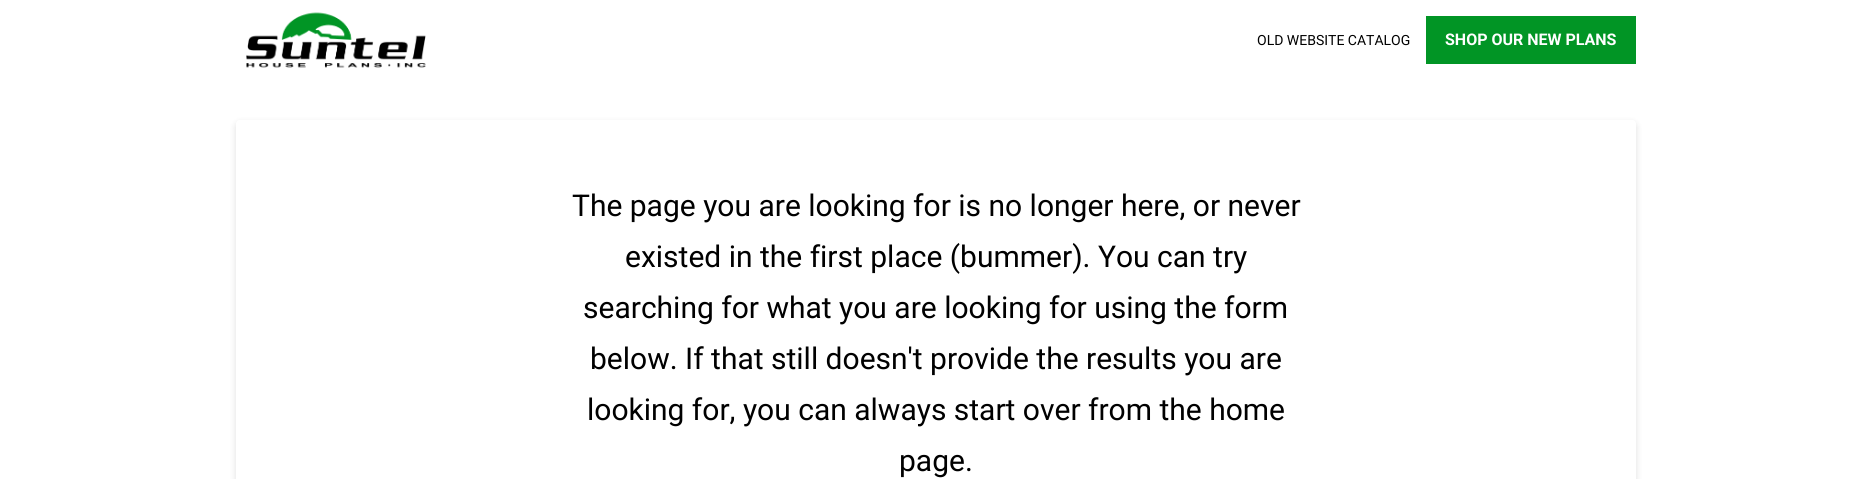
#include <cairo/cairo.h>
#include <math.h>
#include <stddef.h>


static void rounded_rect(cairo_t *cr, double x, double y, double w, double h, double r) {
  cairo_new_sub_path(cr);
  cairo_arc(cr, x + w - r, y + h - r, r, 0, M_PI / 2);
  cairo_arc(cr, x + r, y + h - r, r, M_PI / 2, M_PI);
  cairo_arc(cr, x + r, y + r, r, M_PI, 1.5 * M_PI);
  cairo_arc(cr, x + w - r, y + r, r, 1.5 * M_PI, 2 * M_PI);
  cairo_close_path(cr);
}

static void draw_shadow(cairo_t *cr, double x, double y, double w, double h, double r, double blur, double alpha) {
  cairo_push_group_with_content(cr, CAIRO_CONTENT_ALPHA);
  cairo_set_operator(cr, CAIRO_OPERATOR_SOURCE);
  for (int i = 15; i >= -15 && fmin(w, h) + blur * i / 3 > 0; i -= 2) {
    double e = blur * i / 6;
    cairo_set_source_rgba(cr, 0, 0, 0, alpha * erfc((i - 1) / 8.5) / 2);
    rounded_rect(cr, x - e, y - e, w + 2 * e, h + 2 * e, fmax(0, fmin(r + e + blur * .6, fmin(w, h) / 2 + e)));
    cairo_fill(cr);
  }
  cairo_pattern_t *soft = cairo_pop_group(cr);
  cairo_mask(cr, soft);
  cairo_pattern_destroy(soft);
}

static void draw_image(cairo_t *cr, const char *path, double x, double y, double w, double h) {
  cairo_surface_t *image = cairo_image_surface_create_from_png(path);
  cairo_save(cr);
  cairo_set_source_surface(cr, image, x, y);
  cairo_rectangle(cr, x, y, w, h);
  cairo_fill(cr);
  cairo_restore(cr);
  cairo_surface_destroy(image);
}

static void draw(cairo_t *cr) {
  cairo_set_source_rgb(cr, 1, 1, 1);
  cairo_paint(cr);
  draw_image(cr, "images/1.png", 246, 12, 180, 56);
  cairo_set_source_rgb(cr, 1 / 255.0, 149 / 255.0, 37 / 255.0);
  cairo_rectangle(cr, 1426, 16, 210, 48);
  cairo_fill(cr);
  cairo_save(cr);
  cairo_set_fill_rule(cr, CAIRO_FILL_RULE_EVEN_ODD);
  cairo_new_path(cr);
  cairo_move_to(cr, 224, 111);
  cairo_line_to(cr, 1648, 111);
  cairo_line_to(cr, 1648, 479);
  cairo_line_to(cr, 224, 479);
  cairo_close_path(cr);
  cairo_move_to(cr, 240, 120);
  cairo_line_to(cr, 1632, 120);
  cairo_curve_to(cr, 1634, 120, 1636, 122, 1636, 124);
  cairo_line_to(cr, 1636, 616);
  cairo_curve_to(cr, 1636, 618, 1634, 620, 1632, 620);
  cairo_line_to(cr, 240, 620);
  cairo_curve_to(cr, 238, 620, 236, 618, 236, 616);
  cairo_line_to(cr, 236, 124);
  cairo_curve_to(cr, 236, 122, 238, 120, 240, 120);
  cairo_close_path(cr);
  cairo_clip(cr);
  cairo_set_source_rgb(cr, 0, 0, 0);
  draw_shadow(cr, 236, 123, 1400, 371, 4, 3.5, 0.13);
  cairo_restore(cr);
  cairo_select_font_face(cr, "Roboto", CAIRO_FONT_SLANT_NORMAL, CAIRO_FONT_WEIGHT_NORMAL);
  cairo_set_font_size(cr, 14);
  cairo_set_source_rgb(cr, 0, 0, 0);
  cairo_move_to(cr, 1257, 45);
  cairo_show_text(cr, "OLD WEBSITE CATALOG");
  cairo_select_font_face(cr, "Roboto", CAIRO_FONT_SLANT_NORMAL, CAIRO_FONT_WEIGHT_BOLD);
  cairo_set_font_size(cr, 16);
  cairo_set_source_rgb(cr, 1, 1, 1);
  cairo_move_to(cr, 1445, 45);
  cairo_show_text(cr, "SHOP OUR NEW PLANS");
  cairo_select_font_face(cr, "Roboto", CAIRO_FONT_SLANT_NORMAL, CAIRO_FONT_WEIGHT_NORMAL);
  cairo_set_font_size(cr, 30);
  cairo_set_source_rgb(cr, 0, 0, 0);
  cairo_move_to(cr, 572, 216);
  cairo_show_text(cr, "The page you are looking for is no longer here, or never");
  cairo_move_to(cr, 625, 267);
  cairo_show_text(cr, "existed in the first place (bummer). You can try");
  cairo_move_to(cr, 583, 318);
  cairo_show_text(cr, "searching for what you are looking for using the form");
  cairo_move_to(cr, 590, 369);
  cairo_show_text(cr, "below. If that still doesn't provide the results you are");
  cairo_move_to(cr, 587, 420);
  cairo_show_text(cr, "looking for, you can always start over from the home");
  cairo_move_to(cr, 899, 471);
  cairo_show_text(cr, "page.");
}

int main(void) {
  cairo_surface_t *surface = cairo_image_surface_create(CAIRO_FORMAT_RGB24, 1872, 479);
  cairo_t *cr = cairo_create(surface);
  cairo_font_options_t *options = cairo_font_options_create();
  cairo_font_options_set_hint_metrics(options, CAIRO_HINT_METRICS_OFF);
  cairo_font_options_set_hint_style(options, CAIRO_HINT_STYLE_NONE);
  cairo_set_font_options(cr, options);
  cairo_set_miter_limit(cr, 4);
  draw(cr);
  cairo_surface_write_to_png(surface, "out.png");
  cairo_font_options_destroy(options);
  cairo_destroy(cr);
  cairo_surface_destroy(surface);
  return 0;
}
